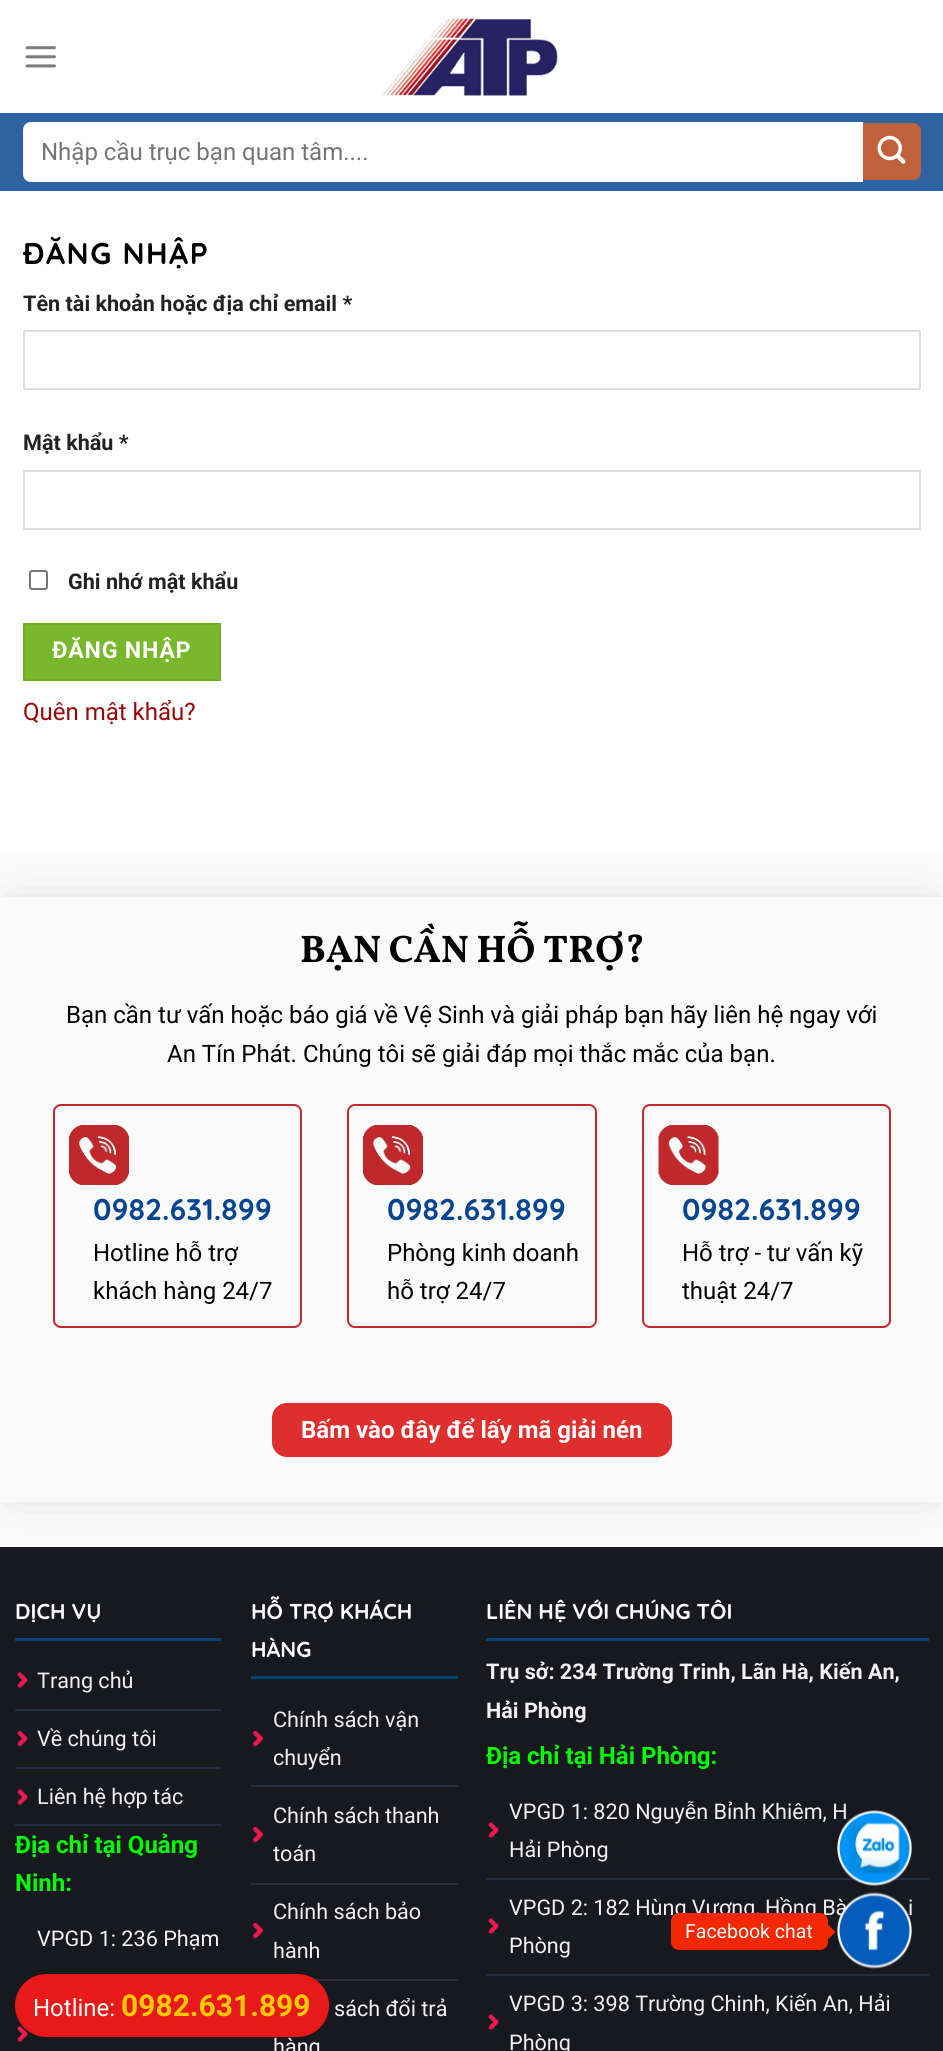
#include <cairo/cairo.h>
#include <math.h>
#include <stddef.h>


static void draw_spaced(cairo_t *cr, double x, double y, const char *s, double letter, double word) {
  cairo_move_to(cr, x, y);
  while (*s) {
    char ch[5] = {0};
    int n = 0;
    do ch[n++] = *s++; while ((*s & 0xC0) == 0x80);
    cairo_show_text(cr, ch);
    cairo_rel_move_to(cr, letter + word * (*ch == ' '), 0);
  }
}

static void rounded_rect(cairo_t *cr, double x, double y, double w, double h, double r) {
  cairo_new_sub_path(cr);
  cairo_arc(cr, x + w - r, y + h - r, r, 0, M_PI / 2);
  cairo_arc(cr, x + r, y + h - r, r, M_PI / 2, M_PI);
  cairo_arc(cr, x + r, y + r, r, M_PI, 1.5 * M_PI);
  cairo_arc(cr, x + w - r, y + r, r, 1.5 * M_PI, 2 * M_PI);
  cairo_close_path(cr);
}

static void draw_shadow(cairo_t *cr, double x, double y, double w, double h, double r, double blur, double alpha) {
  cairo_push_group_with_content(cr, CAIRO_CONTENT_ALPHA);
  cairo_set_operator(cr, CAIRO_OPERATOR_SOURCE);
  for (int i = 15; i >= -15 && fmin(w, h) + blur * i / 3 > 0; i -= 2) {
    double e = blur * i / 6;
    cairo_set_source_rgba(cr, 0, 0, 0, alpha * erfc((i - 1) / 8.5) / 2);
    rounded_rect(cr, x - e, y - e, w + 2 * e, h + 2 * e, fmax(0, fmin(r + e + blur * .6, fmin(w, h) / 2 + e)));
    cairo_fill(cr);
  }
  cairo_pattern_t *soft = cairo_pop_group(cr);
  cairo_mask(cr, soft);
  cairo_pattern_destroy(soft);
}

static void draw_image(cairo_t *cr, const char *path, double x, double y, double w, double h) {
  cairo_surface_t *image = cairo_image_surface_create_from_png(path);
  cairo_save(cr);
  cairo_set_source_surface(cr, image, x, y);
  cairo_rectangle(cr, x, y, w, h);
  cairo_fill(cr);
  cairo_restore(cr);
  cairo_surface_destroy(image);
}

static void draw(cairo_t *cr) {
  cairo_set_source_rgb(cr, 1, 1, 1);
  cairo_paint(cr);
  draw_image(cr, "images/1.png", 25, 46, 31, 22);
  draw_image(cr, "images/2.png", 382, 18, 176, 78);
  cairo_set_source_rgb(cr, 46 / 255.0, 99 / 255.0, 163 / 255.0);
  cairo_rectangle(cr, 0, 113, 943, 78);
  cairo_fill(cr);
  cairo_set_source_rgb(cr, 1, 1, 1);
  cairo_new_path(cr);
  cairo_move_to(cr, 31, 122);
  cairo_line_to(cr, 863, 122);
  cairo_line_to(cr, 863, 182);
  cairo_line_to(cr, 31, 182);
  cairo_curve_to(cr, 26.5, 182, 23, 178.5, 23, 174);
  cairo_line_to(cr, 23, 130);
  cairo_curve_to(cr, 23, 125.5, 26.5, 122, 31, 122);
  cairo_close_path(cr);
  cairo_fill(cr);
  cairo_set_source_rgb(cr, 192 / 255.0, 97 / 255.0, 60 / 255.0);
  cairo_new_path(cr);
  cairo_move_to(cr, 863, 123);
  cairo_line_to(cr, 913, 123);
  cairo_curve_to(cr, 917.5, 123, 921, 126.5, 921, 131);
  cairo_line_to(cr, 921, 172);
  cairo_curve_to(cr, 921, 176.5, 917.5, 180, 913, 180);
  cairo_line_to(cr, 863, 180);
  cairo_close_path(cr);
  cairo_fill(cr);
  draw_image(cr, "images/3.png", 877, 135, 29, 29);
  cairo_rectangle(cr, 24, 331, 896, 58);
  cairo_set_source_rgb(cr, 221 / 255.0, 221 / 255.0, 221 / 255.0);
  cairo_stroke(cr);
  cairo_rectangle(cr, 24, 471, 896, 58);
  cairo_stroke(cr);
  rounded_rect(cr, 30, 571, 17, 18, 2);
  cairo_set_source_rgb(cr, 118 / 255.0, 118 / 255.0, 118 / 255.0);
  cairo_stroke(cr);
  cairo_set_source_rgb(cr, 120 / 255.0, 184 / 255.0, 42 / 255.0);
  cairo_rectangle(cr, 24, 624, 196, 56);
  cairo_fill_preserve(cr);
  cairo_set_source_rgb(cr, 114 / 255.0, 175 / 255.0, 40 / 255.0);
  cairo_stroke(cr);
  cairo_set_source_rgb(cr, 250 / 255.0, 250 / 255.0, 250 / 255.0);
  cairo_rectangle(cr, 0, 852, 943, 695);
  cairo_fill(cr);
  cairo_set_source_rgb(cr, 23 / 255.0, 25 / 255.0, 31 / 255.0);
  cairo_rectangle(cr, 0, 1547, 943, 504);
  cairo_fill(cr);
  cairo_save(cr);
  cairo_set_fill_rule(cr, CAIRO_FILL_RULE_EVEN_ODD);
  cairo_new_path(cr);
  cairo_move_to(cr, 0, 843);
  cairo_line_to(cr, 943, 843);
  cairo_line_to(cr, 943, 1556);
  cairo_line_to(cr, 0, 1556);
  cairo_close_path(cr);
  cairo_move_to(cr, 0, 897);
  cairo_line_to(cr, 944, 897);
  cairo_line_to(cr, 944, 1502);
  cairo_line_to(cr, 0, 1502);
  cairo_close_path(cr);
  cairo_clip(cr);
  cairo_set_source_rgb(cr, 0, 0, 0);
  draw_shadow(cr, 15, 912, 914, 575, 0, 22.5, 0.2);
  cairo_restore(cr);
  rounded_rect(cr, 54, 1105, 247, 222, 7);
  cairo_set_source_rgb(cr, 193 / 255.0, 40 / 255.0, 43 / 255.0);
  cairo_stroke(cr);
  draw_image(cr, "images/4.png", 69, 1125, 60, 60);
  rounded_rect(cr, 348, 1105, 248, 222, 7);
  cairo_stroke(cr);
  draw_image(cr, "images/4.png", 363, 1125, 60, 60);
  rounded_rect(cr, 643, 1105, 247, 222, 7);
  cairo_stroke(cr);
  draw_image(cr, "images/5.png", 658, 1125, 61, 60);
  cairo_set_source_rgb(cr, 223 / 255.0, 46 / 255.0, 46 / 255.0);
  rounded_rect(cr, 272, 1403, 400, 54, 15);
  cairo_fill(cr);
  cairo_set_source_rgb(cr, 1 / 255.0, 68 / 255.0, 122 / 255.0);
  cairo_rectangle(cr, 15, 1638, 206, 3);
  cairo_fill(cr);
  draw_image(cr, "images/6.png", 17, 1672, 11, 16);
  cairo_set_source_rgb(cr, 38 / 255.0, 44 / 255.0, 68 / 255.0);
  cairo_rectangle(cr, 15, 1709, 206, 2);
  cairo_fill(cr);
  draw_image(cr, "images/7.png", 17, 1731, 11, 15);
  cairo_rectangle(cr, 15, 1767, 206, 2);
  cairo_fill(cr);
  draw_image(cr, "images/6.png", 17, 1789, 11, 16);
  cairo_rectangle(cr, 15, 1824, 206, 2);
  cairo_fill(cr);
  draw_image(cr, "images/6.png", 17, 2026, 11, 16);
  cairo_set_source_rgb(cr, 1 / 255.0, 68 / 255.0, 122 / 255.0);
  cairo_rectangle(cr, 251, 1676, 207, 3);
  cairo_fill(cr);
  draw_image(cr, "images/8.png", 252, 1731, 12, 15);
  cairo_set_source_rgb(cr, 38 / 255.0, 44 / 255.0, 68 / 255.0);
  cairo_rectangle(cr, 251, 1785, 207, 2);
  cairo_fill(cr);
  draw_image(cr, "images/8.png", 252, 1827, 12, 15);
  cairo_rectangle(cr, 251, 1883, 207, 2);
  cairo_fill(cr);
  draw_image(cr, "images/8.png", 252, 1923, 12, 15);
  cairo_rectangle(cr, 314, 1979, 144, 2);
  cairo_fill(cr);
  cairo_set_source_rgb(cr, 1 / 255.0, 68 / 255.0, 122 / 255.0);
  cairo_rectangle(cr, 486, 1638, 443, 3);
  cairo_fill(cr);
  draw_image(cr, "images/6.png", 488, 1822, 11, 16);
  cairo_set_source_rgb(cr, 38 / 255.0, 44 / 255.0, 68 / 255.0);
  cairo_rectangle(cr, 486, 1878, 443, 2);
  cairo_fill(cr);
  draw_image(cr, "images/6.png", 488, 1918, 11, 16);
  cairo_rectangle(cr, 486, 1974, 443, 2);
  cairo_fill(cr);
  draw_image(cr, "images/6.png", 488, 2014, 11, 16);
  cairo_set_source_rgb(cr, 243 / 255.0, 39 / 255.0, 0);
  cairo_new_path(cr);
  cairo_move_to(cr, 828, 1939.5);
  cairo_line_to(cr, 828, 1924.5);
  cairo_line_to(cr, 835.5, 1932);
  cairo_close_path(cr);
  cairo_fill(cr);
  cairo_set_source_rgb(cr, 231 / 255.0, 25 / 255.0, 25 / 255.0);
  rounded_rect(cr, 15, 1974, 314, 63, 31.5);
  cairo_fill(cr);
  cairo_select_font_face(cr, "Roboto", CAIRO_FONT_SLANT_NORMAL, CAIRO_FONT_WEIGHT_NORMAL);
  cairo_set_font_size(cr, 24);
  cairo_set_source_rgb(cr, 117 / 255.0, 117 / 255.0, 117 / 255.0);
  cairo_move_to(cr, 41, 160);
  cairo_show_text(cr, "Nhập cầu trục bạn quan tâm....");
  cairo_select_font_face(cr, "Quicksand Light", CAIRO_FONT_SLANT_NORMAL, CAIRO_FONT_WEIGHT_NORMAL);
  cairo_set_font_size(cr, 30);
  cairo_set_source_rgb(cr, 0, 0, 0);
  draw_spaced(cr, 23, 264, "ĐĂNG NHẬP", 1.5, 0);
  cairo_select_font_face(cr, "Roboto", CAIRO_FONT_SLANT_NORMAL, CAIRO_FONT_WEIGHT_BOLD);
  cairo_set_font_size(cr, 21.6);
  cairo_set_source_rgb(cr, 34 / 255.0, 34 / 255.0, 34 / 255.0);
  cairo_move_to(cr, 23, 311);
  cairo_show_text(cr, "Tên tài khoản hoặc địa chỉ email *");
  cairo_move_to(cr, 23, 450);
  cairo_show_text(cr, "Mật khẩu *");
  cairo_move_to(cr, 68, 589);
  cairo_show_text(cr, "Ghi nhớ mật khẩu");
  cairo_set_font_size(cr, 23.25);
  cairo_set_source_rgb(cr, 1, 1, 1);
  draw_spaced(cr, 52, 658, "ĐĂNG NHẬP", 0.75, 0);
  cairo_select_font_face(cr, "Roboto", CAIRO_FONT_SLANT_NORMAL, CAIRO_FONT_WEIGHT_NORMAL);
  cairo_set_font_size(cr, 24);
  cairo_set_source_rgb(cr, 153 / 255.0, 9 / 255.0, 9 / 255.0);
  cairo_move_to(cr, 23, 720);
  cairo_show_text(cr, "Quên mật khẩu?");
  cairo_select_font_face(cr, "Vollkorn", CAIRO_FONT_SLANT_NORMAL, CAIRO_FONT_WEIGHT_BOLD);
  cairo_set_font_size(cr, 38.5);
  cairo_set_source_rgb(cr, 0, 0, 0);
  cairo_move_to(cr, 300, 962);
  cairo_show_text(cr, "BẠN CẦN HỖ TRỢ?");
  cairo_select_font_face(cr, "Roboto", CAIRO_FONT_SLANT_NORMAL, CAIRO_FONT_WEIGHT_NORMAL);
  cairo_set_font_size(cr, 24);
  cairo_move_to(cr, 66, 1023);
  cairo_show_text(cr, "Bạn cần tư vấn hoặc báo giá về Vệ Sinh và giải pháp bạn hãy liên hệ ngay với");
  cairo_move_to(cr, 167, 1062);
  cairo_show_text(cr, "An Tín Phát. Chúng tôi sẽ giải đáp mọi thắc mắc của bạn.");
  cairo_select_font_face(cr, "Quicksand Light", CAIRO_FONT_SLANT_NORMAL, CAIRO_FONT_WEIGHT_NORMAL);
  cairo_set_font_size(cr, 30);
  cairo_set_source_rgb(cr, 6 / 255.0, 69 / 255.0, 143 / 255.0);
  cairo_move_to(cr, 93, 1220);
  cairo_show_text(cr, "0982.631.899");
  cairo_select_font_face(cr, "Roboto", CAIRO_FONT_SLANT_NORMAL, CAIRO_FONT_WEIGHT_NORMAL);
  cairo_set_font_size(cr, 24);
  cairo_set_source_rgb(cr, 0, 0, 0);
  cairo_move_to(cr, 93, 1261);
  cairo_show_text(cr, "Hotline hỗ trợ");
  cairo_move_to(cr, 93, 1299);
  cairo_show_text(cr, "khách hàng 24/7");
  cairo_select_font_face(cr, "Quicksand Light", CAIRO_FONT_SLANT_NORMAL, CAIRO_FONT_WEIGHT_NORMAL);
  cairo_set_font_size(cr, 30);
  cairo_set_source_rgb(cr, 6 / 255.0, 69 / 255.0, 143 / 255.0);
  cairo_move_to(cr, 387, 1220);
  cairo_show_text(cr, "0982.631.899");
  cairo_select_font_face(cr, "Roboto", CAIRO_FONT_SLANT_NORMAL, CAIRO_FONT_WEIGHT_NORMAL);
  cairo_set_font_size(cr, 24);
  cairo_set_source_rgb(cr, 0, 0, 0);
  cairo_move_to(cr, 387, 1261);
  cairo_show_text(cr, "Phòng kinh doanh");
  cairo_move_to(cr, 387, 1299);
  cairo_show_text(cr, "hỗ trợ 24/7");
  cairo_select_font_face(cr, "Quicksand Light", CAIRO_FONT_SLANT_NORMAL, CAIRO_FONT_WEIGHT_NORMAL);
  cairo_set_font_size(cr, 30);
  cairo_set_source_rgb(cr, 6 / 255.0, 69 / 255.0, 143 / 255.0);
  cairo_move_to(cr, 682, 1220);
  cairo_show_text(cr, "0982.631.899");
  cairo_select_font_face(cr, "Roboto", CAIRO_FONT_SLANT_NORMAL, CAIRO_FONT_WEIGHT_NORMAL);
  cairo_set_font_size(cr, 24);
  cairo_set_source_rgb(cr, 0, 0, 0);
  cairo_move_to(cr, 682, 1261);
  cairo_show_text(cr, "Hỗ trợ - tư vấn kỹ");
  cairo_move_to(cr, 682, 1299);
  cairo_show_text(cr, "thuật 24/7");
  cairo_select_font_face(cr, "Roboto", CAIRO_FONT_SLANT_NORMAL, CAIRO_FONT_WEIGHT_BOLD);
  cairo_set_source_rgb(cr, 1, 1, 1);
  cairo_move_to(cr, 301, 1438);
  cairo_show_text(cr, "Bấm vào đây để lấy mã giải nén");
  cairo_select_font_face(cr, "Quicksand Light", CAIRO_FONT_SLANT_NORMAL, CAIRO_FONT_WEIGHT_NORMAL);
  cairo_set_font_size(cr, 21.6);
  cairo_move_to(cr, 15, 1619);
  cairo_show_text(cr, "DỊCH VỤ");
  cairo_select_font_face(cr, "Roboto", CAIRO_FONT_SLANT_NORMAL, CAIRO_FONT_WEIGHT_NORMAL);
  cairo_set_source_rgb(cr, 241 / 255.0, 241 / 255.0, 241 / 255.0);
  cairo_move_to(cr, 37, 1688);
  cairo_show_text(cr, "Trang chủ");
  cairo_move_to(cr, 37, 1746);
  cairo_show_text(cr, "Về chúng tôi");
  cairo_move_to(cr, 37, 1804);
  cairo_show_text(cr, "Liên hệ hợp tác");
  cairo_select_font_face(cr, "Roboto", CAIRO_FONT_SLANT_NORMAL, CAIRO_FONT_WEIGHT_BOLD);
  cairo_set_font_size(cr, 24);
  cairo_set_source_rgb(cr, 0, 1, 0);
  cairo_move_to(cr, 15, 1853);
  cairo_show_text(cr, "Địa chỉ tại Quảng");
  cairo_move_to(cr, 15, 1891);
  cairo_show_text(cr, "Ninh:");
  cairo_select_font_face(cr, "Roboto", CAIRO_FONT_SLANT_NORMAL, CAIRO_FONT_WEIGHT_NORMAL);
  cairo_set_font_size(cr, 21.6);
  cairo_set_source_rgb(cr, 241 / 255.0, 241 / 255.0, 241 / 255.0);
  cairo_move_to(cr, 37, 1946);
  cairo_show_text(cr, "VPGD 1: 236 Phạm");
  cairo_select_font_face(cr, "Quicksand Light", CAIRO_FONT_SLANT_NORMAL, CAIRO_FONT_WEIGHT_NORMAL);
  cairo_set_source_rgb(cr, 1, 1, 1);
  cairo_move_to(cr, 251, 1619);
  cairo_show_text(cr, "HỖ TRỢ KHÁCH");
  cairo_move_to(cr, 251, 1657);
  cairo_show_text(cr, "HÀNG");
  cairo_select_font_face(cr, "Roboto", CAIRO_FONT_SLANT_NORMAL, CAIRO_FONT_WEIGHT_NORMAL);
  cairo_set_source_rgb(cr, 241 / 255.0, 241 / 255.0, 241 / 255.0);
  cairo_move_to(cr, 273, 1727);
  cairo_show_text(cr, "Chính sách vận");
  cairo_move_to(cr, 273, 1765);
  cairo_show_text(cr, "chuyển");
  cairo_move_to(cr, 273, 1823);
  cairo_show_text(cr, "Chính sách thanh");
  cairo_move_to(cr, 273, 1861);
  cairo_show_text(cr, "toán");
  cairo_move_to(cr, 273, 1919);
  cairo_show_text(cr, "Chính sách bảo");
  cairo_move_to(cr, 273, 1958);
  cairo_show_text(cr, "hành");
  cairo_move_to(cr, 334, 2016);
  cairo_show_text(cr, "sách đổi trả");
  cairo_move_to(cr, 273, 2054);
  cairo_show_text(cr, "hàng");
  cairo_select_font_face(cr, "Quicksand Light", CAIRO_FONT_SLANT_NORMAL, CAIRO_FONT_WEIGHT_NORMAL);
  cairo_set_source_rgb(cr, 1, 1, 1);
  cairo_move_to(cr, 486, 1619);
  cairo_show_text(cr, "LIÊN HỆ VỚI CHÚNG TÔI");
  cairo_select_font_face(cr, "Roboto", CAIRO_FONT_SLANT_NORMAL, CAIRO_FONT_WEIGHT_BOLD);
  cairo_set_source_rgb(cr, 241 / 255.0, 241 / 255.0, 241 / 255.0);
  cairo_move_to(cr, 486, 1679);
  cairo_show_text(cr, "Trụ sở: 234 Trường Trinh, Lãn Hà, Kiến An,");
  cairo_move_to(cr, 486, 1718);
  cairo_show_text(cr, "Hải Phòng");
  cairo_set_font_size(cr, 24);
  cairo_set_source_rgb(cr, 0, 1, 0);
  cairo_move_to(cr, 486, 1764);
  cairo_show_text(cr, "Địa chỉ tại Hải Phòng:");
  cairo_select_font_face(cr, "Roboto", CAIRO_FONT_SLANT_NORMAL, CAIRO_FONT_WEIGHT_NORMAL);
  cairo_set_font_size(cr, 21.6);
  cairo_set_source_rgb(cr, 241 / 255.0, 241 / 255.0, 241 / 255.0);
  cairo_move_to(cr, 509, 1819);
  cairo_show_text(cr, "VPGD 1: 820 Nguyễn Bỉnh Khiêm, H");
  cairo_move_to(cr, 509, 1857);
  cairo_show_text(cr, "Hải Phòng");
  cairo_move_to(cr, 509, 1915);
  cairo_show_text(cr, "VPGD 2: 182 Hùng Vương, Hồng Bà");
  cairo_move_to(cr, 908, 1915);
  cairo_show_text(cr, "i");
  cairo_move_to(cr, 509, 1953);
  cairo_show_text(cr, "Phòng");
  cairo_move_to(cr, 509, 2011);
  cairo_show_text(cr, "VPGD 3: 398 Trường Chinh, Kiến An, Hải");
  cairo_move_to(cr, 509, 2050);
  cairo_show_text(cr, "Phòng");
  draw_image(cr, "images/9.png", 837, 1810, 75, 76);
  cairo_set_source_rgb(cr, 243 / 255.0, 39 / 255.0, 0);
  rounded_rect(cr, 671, 1913, 157, 37, 8);
  cairo_fill(cr);
  cairo_set_font_size(cr, 19.5);
  cairo_set_source_rgb(cr, 1, 1, 1);
  cairo_move_to(cr, 685, 1938);
  cairo_show_text(cr, "Facebook chat");
  draw_image(cr, "images/10.png", 837, 1892, 75, 77);
  cairo_set_font_size(cr, 24);
  cairo_move_to(cr, 33, 2016);
  cairo_show_text(cr, "Hotline:");
  cairo_select_font_face(cr, "Roboto", CAIRO_FONT_SLANT_NORMAL, CAIRO_FONT_WEIGHT_BOLD);
  cairo_set_font_size(cr, 30);
  cairo_set_source_rgb(cr, 254 / 255.0, 201 / 255.0, 1 / 255.0);
  cairo_move_to(cr, 121, 2016);
  cairo_show_text(cr, "0982.631.899");
}

int main(void) {
  cairo_surface_t *surface = cairo_image_surface_create(CAIRO_FORMAT_RGB24, 943, 2051);
  cairo_t *cr = cairo_create(surface);
  cairo_font_options_t *options = cairo_font_options_create();
  cairo_font_options_set_hint_metrics(options, CAIRO_HINT_METRICS_OFF);
  cairo_font_options_set_hint_style(options, CAIRO_HINT_STYLE_NONE);
  cairo_set_font_options(cr, options);
  cairo_set_miter_limit(cr, 4);
  draw(cr);
  cairo_surface_write_to_png(surface, "out.png");
  cairo_font_options_destroy(options);
  cairo_destroy(cr);
  cairo_surface_destroy(surface);
  return 0;
}
